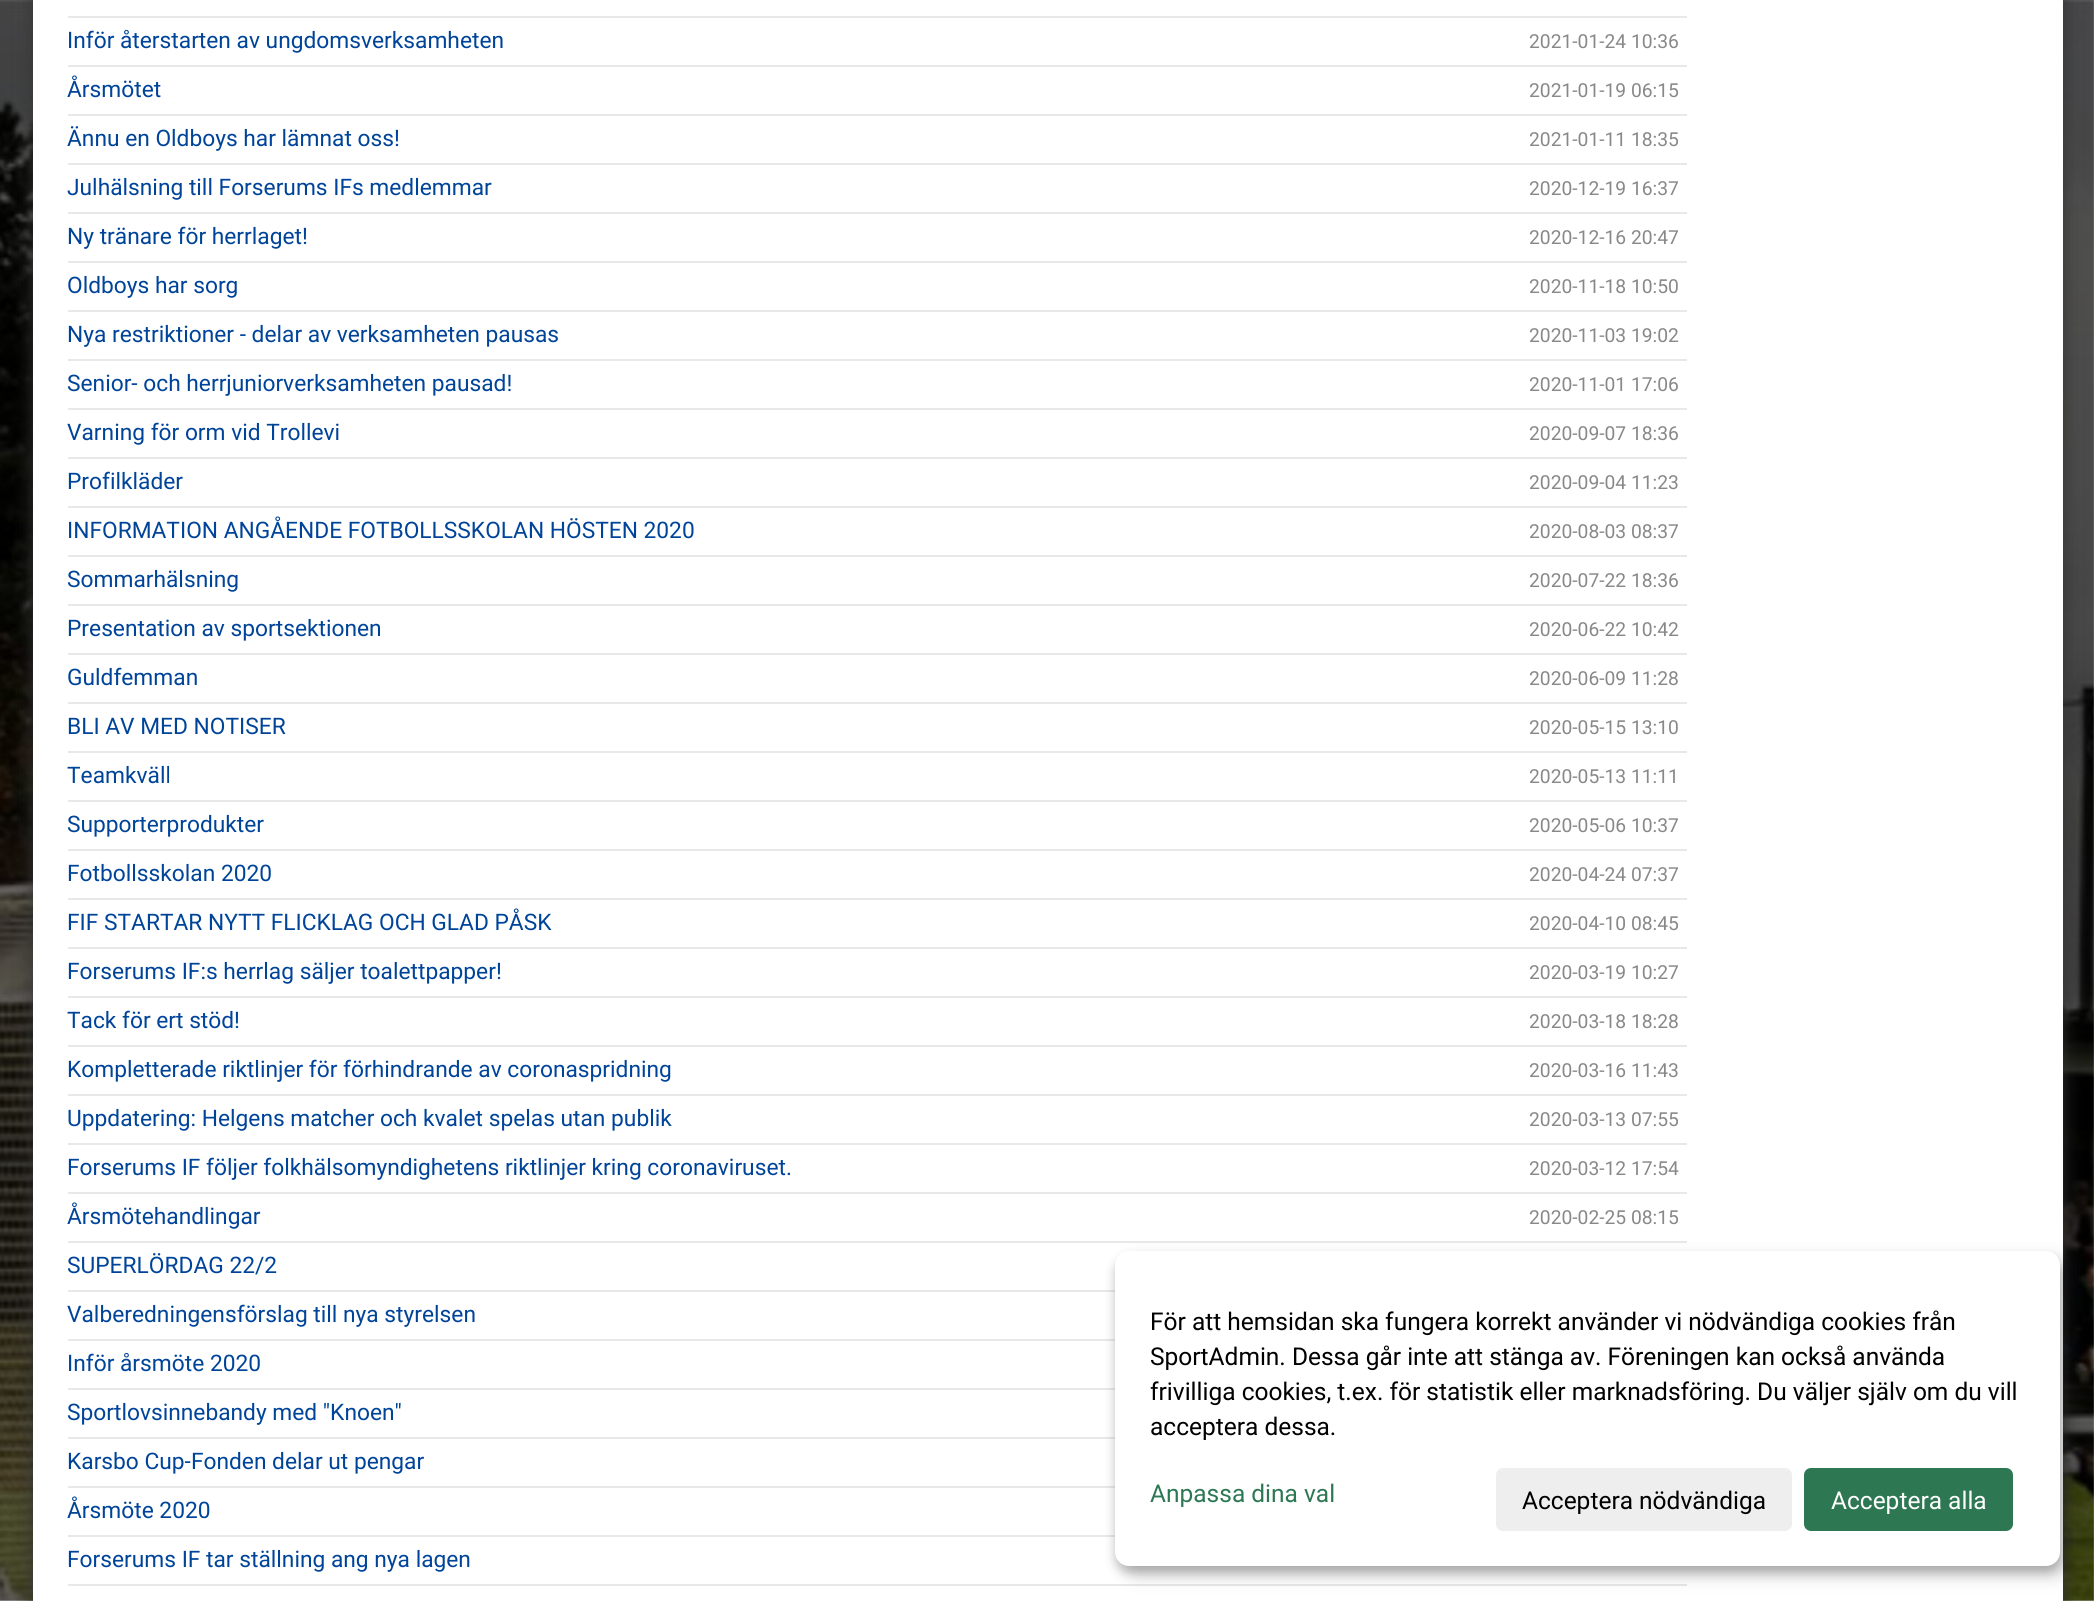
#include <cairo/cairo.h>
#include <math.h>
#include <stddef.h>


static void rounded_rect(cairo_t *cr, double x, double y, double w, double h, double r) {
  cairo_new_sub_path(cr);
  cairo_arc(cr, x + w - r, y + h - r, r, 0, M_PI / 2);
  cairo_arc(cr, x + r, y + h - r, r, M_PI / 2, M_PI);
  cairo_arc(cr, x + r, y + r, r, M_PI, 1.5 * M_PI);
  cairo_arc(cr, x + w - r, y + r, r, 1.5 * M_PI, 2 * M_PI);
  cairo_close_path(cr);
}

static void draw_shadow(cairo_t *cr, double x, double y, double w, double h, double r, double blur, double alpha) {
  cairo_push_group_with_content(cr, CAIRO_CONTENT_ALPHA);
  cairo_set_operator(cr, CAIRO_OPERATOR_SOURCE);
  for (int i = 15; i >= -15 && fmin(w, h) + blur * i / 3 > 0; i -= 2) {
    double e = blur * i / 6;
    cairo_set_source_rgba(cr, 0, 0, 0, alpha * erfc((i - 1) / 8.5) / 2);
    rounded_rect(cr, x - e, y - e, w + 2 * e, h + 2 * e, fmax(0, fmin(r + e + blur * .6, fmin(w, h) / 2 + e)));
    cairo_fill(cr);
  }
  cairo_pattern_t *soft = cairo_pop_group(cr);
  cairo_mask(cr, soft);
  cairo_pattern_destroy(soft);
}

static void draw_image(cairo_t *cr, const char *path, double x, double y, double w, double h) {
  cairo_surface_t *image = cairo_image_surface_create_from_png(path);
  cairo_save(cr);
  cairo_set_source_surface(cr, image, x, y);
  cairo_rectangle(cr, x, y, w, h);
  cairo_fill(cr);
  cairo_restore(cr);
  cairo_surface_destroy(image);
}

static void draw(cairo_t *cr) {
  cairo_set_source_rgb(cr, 1, 1, 1);
  cairo_paint(cr);
  draw_image(cr, "images/1.png", 0, 0, 2094, 1601);
  cairo_set_source_rgb(cr, 51 / 255.0, 51 / 255.0, 51 / 255.0);
  draw_shadow(cr, 33, -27, 2030, 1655, 0, 9, 1);
  cairo_set_source_rgb(cr, 1, 1, 1);
  cairo_rectangle(cr, 33, 0, 2030, 1601);
  cairo_fill(cr);
  cairo_set_source_rgb(cr, 232 / 255.0, 232 / 255.0, 232 / 255.0);
  cairo_rectangle(cr, 68, 16, 1619, 2);
  cairo_fill(cr);
  cairo_rectangle(cr, 68, 65, 1619, 2);
  cairo_fill(cr);
  cairo_rectangle(cr, 68, 114, 1619, 2);
  cairo_fill(cr);
  cairo_rectangle(cr, 68, 163, 1619, 2);
  cairo_fill(cr);
  cairo_rectangle(cr, 68, 212, 1619, 2);
  cairo_fill(cr);
  cairo_rectangle(cr, 68, 261, 1619, 2);
  cairo_fill(cr);
  cairo_rectangle(cr, 68, 310, 1619, 2);
  cairo_fill(cr);
  cairo_rectangle(cr, 68, 359, 1619, 2);
  cairo_fill(cr);
  cairo_rectangle(cr, 68, 408, 1619, 2);
  cairo_fill(cr);
  cairo_rectangle(cr, 68, 457, 1619, 2);
  cairo_fill(cr);
  cairo_rectangle(cr, 68, 506, 1619, 2);
  cairo_fill(cr);
  cairo_rectangle(cr, 68, 555, 1619, 2);
  cairo_fill(cr);
  cairo_rectangle(cr, 68, 604, 1619, 2);
  cairo_fill(cr);
  cairo_rectangle(cr, 68, 653, 1619, 2);
  cairo_fill(cr);
  cairo_rectangle(cr, 68, 702, 1619, 2);
  cairo_fill(cr);
  cairo_rectangle(cr, 68, 751, 1619, 2);
  cairo_fill(cr);
  cairo_rectangle(cr, 68, 800, 1619, 2);
  cairo_fill(cr);
  cairo_rectangle(cr, 68, 849, 1619, 2);
  cairo_fill(cr);
  cairo_rectangle(cr, 68, 898, 1619, 2);
  cairo_fill(cr);
  cairo_rectangle(cr, 68, 947, 1619, 2);
  cairo_fill(cr);
  cairo_rectangle(cr, 68, 996, 1619, 2);
  cairo_fill(cr);
  cairo_rectangle(cr, 68, 1045, 1619, 2);
  cairo_fill(cr);
  cairo_rectangle(cr, 68, 1094, 1619, 2);
  cairo_fill(cr);
  cairo_rectangle(cr, 68, 1143, 1619, 2);
  cairo_fill(cr);
  cairo_rectangle(cr, 68, 1192, 1619, 2);
  cairo_fill(cr);
  cairo_rectangle(cr, 68, 1241, 1619, 2);
  cairo_fill(cr);
  cairo_rectangle(cr, 68, 1290, 1047, 2);
  cairo_fill(cr);
  cairo_rectangle(cr, 68, 1339, 1047, 2);
  cairo_fill(cr);
  cairo_rectangle(cr, 68, 1388, 1047, 2);
  cairo_fill(cr);
  cairo_rectangle(cr, 68, 1437, 1047, 2);
  cairo_fill(cr);
  cairo_rectangle(cr, 68, 1486, 1047, 2);
  cairo_fill(cr);
  cairo_rectangle(cr, 68, 1535, 1047, 2);
  cairo_fill(cr);
  cairo_rectangle(cr, 68, 1584, 1619, 2);
  cairo_fill(cr);
  cairo_set_source_rgb(cr, 0, 0, 0);
  draw_shadow(cr, 1124, 1260, 945, 315, 14, 9, 0.19);
  draw_shadow(cr, 1115, 1258, 945, 315, 14, 5, 0.2);
  cairo_set_source_rgb(cr, 1, 1, 1);
  rounded_rect(cr, 1115, 1251, 945, 315, 14);
  cairo_fill(cr);
  cairo_set_source_rgb(cr, 238 / 255.0, 238 / 255.0, 238 / 255.0);
  rounded_rect(cr, 1496, 1468, 296, 63, 7);
  cairo_fill(cr);
  cairo_set_source_rgb(cr, 45 / 255.0, 120 / 255.0, 83 / 255.0);
  rounded_rect(cr, 1804, 1468, 209, 63, 7);
  cairo_fill(cr);
  cairo_select_font_face(cr, "Roboto", CAIRO_FONT_SLANT_NORMAL, CAIRO_FONT_WEIGHT_NORMAL);
  cairo_set_font_size(cr, 22.75);
  cairo_set_source_rgb(cr, 0, 68 / 255.0, 153 / 255.0);
  cairo_move_to(cr, 67, 48);
  cairo_show_text(cr, "Inför återstarten av ungdomsverksamheten");
  cairo_set_font_size(cr, 19.25);
  cairo_set_source_rgb(cr, 136 / 255.0, 136 / 255.0, 136 / 255.0);
  cairo_move_to(cr, 1529, 48);
  cairo_show_text(cr, "2021-01-24 10:36");
  cairo_set_font_size(cr, 22.75);
  cairo_set_source_rgb(cr, 0, 68 / 255.0, 153 / 255.0);
  cairo_move_to(cr, 67, 97);
  cairo_show_text(cr, "Årsmötet");
  cairo_set_font_size(cr, 19.25);
  cairo_set_source_rgb(cr, 136 / 255.0, 136 / 255.0, 136 / 255.0);
  cairo_move_to(cr, 1529, 97);
  cairo_show_text(cr, "2021-01-19 06:15");
  cairo_set_font_size(cr, 22.75);
  cairo_set_source_rgb(cr, 0, 68 / 255.0, 153 / 255.0);
  cairo_move_to(cr, 67, 146);
  cairo_show_text(cr, "Ännu en Oldboys har lämnat oss!");
  cairo_set_font_size(cr, 19.25);
  cairo_set_source_rgb(cr, 136 / 255.0, 136 / 255.0, 136 / 255.0);
  cairo_move_to(cr, 1529, 146);
  cairo_show_text(cr, "2021-01-11 18:35");
  cairo_set_font_size(cr, 22.75);
  cairo_set_source_rgb(cr, 0, 68 / 255.0, 153 / 255.0);
  cairo_move_to(cr, 67, 195);
  cairo_show_text(cr, "Julhälsning till Forserums IFs medlemmar");
  cairo_set_font_size(cr, 19.25);
  cairo_set_source_rgb(cr, 136 / 255.0, 136 / 255.0, 136 / 255.0);
  cairo_move_to(cr, 1529, 195);
  cairo_show_text(cr, "2020-12-19 16:37");
  cairo_set_font_size(cr, 22.75);
  cairo_set_source_rgb(cr, 0, 68 / 255.0, 153 / 255.0);
  cairo_move_to(cr, 67, 244);
  cairo_show_text(cr, "Ny tränare för herrlaget!");
  cairo_set_font_size(cr, 19.25);
  cairo_set_source_rgb(cr, 136 / 255.0, 136 / 255.0, 136 / 255.0);
  cairo_move_to(cr, 1529, 244);
  cairo_show_text(cr, "2020-12-16 20:47");
  cairo_set_font_size(cr, 22.75);
  cairo_set_source_rgb(cr, 0, 68 / 255.0, 153 / 255.0);
  cairo_move_to(cr, 67, 293);
  cairo_show_text(cr, "Oldboys har sorg");
  cairo_set_font_size(cr, 19.25);
  cairo_set_source_rgb(cr, 136 / 255.0, 136 / 255.0, 136 / 255.0);
  cairo_move_to(cr, 1529, 293);
  cairo_show_text(cr, "2020-11-18 10:50");
  cairo_set_font_size(cr, 22.75);
  cairo_set_source_rgb(cr, 0, 68 / 255.0, 153 / 255.0);
  cairo_move_to(cr, 67, 342);
  cairo_show_text(cr, "Nya restriktioner - delar av verksamheten pausas");
  cairo_set_font_size(cr, 19.25);
  cairo_set_source_rgb(cr, 136 / 255.0, 136 / 255.0, 136 / 255.0);
  cairo_move_to(cr, 1529, 342);
  cairo_show_text(cr, "2020-11-03 19:02");
  cairo_set_font_size(cr, 22.75);
  cairo_set_source_rgb(cr, 0, 68 / 255.0, 153 / 255.0);
  cairo_move_to(cr, 67, 391);
  cairo_show_text(cr, "Senior- och herrjuniorverksamheten pausad!");
  cairo_set_font_size(cr, 19.25);
  cairo_set_source_rgb(cr, 136 / 255.0, 136 / 255.0, 136 / 255.0);
  cairo_move_to(cr, 1529, 391);
  cairo_show_text(cr, "2020-11-01 17:06");
  cairo_set_font_size(cr, 22.75);
  cairo_set_source_rgb(cr, 0, 68 / 255.0, 153 / 255.0);
  cairo_move_to(cr, 67, 440);
  cairo_show_text(cr, "Varning för orm vid Trollevi");
  cairo_set_font_size(cr, 19.25);
  cairo_set_source_rgb(cr, 136 / 255.0, 136 / 255.0, 136 / 255.0);
  cairo_move_to(cr, 1529, 440);
  cairo_show_text(cr, "2020-09-07 18:36");
  cairo_set_font_size(cr, 22.75);
  cairo_set_source_rgb(cr, 0, 68 / 255.0, 153 / 255.0);
  cairo_move_to(cr, 67, 489);
  cairo_show_text(cr, "Profilkläder");
  cairo_set_font_size(cr, 19.25);
  cairo_set_source_rgb(cr, 136 / 255.0, 136 / 255.0, 136 / 255.0);
  cairo_move_to(cr, 1529, 489);
  cairo_show_text(cr, "2020-09-04 11:23");
  cairo_set_font_size(cr, 22.75);
  cairo_set_source_rgb(cr, 0, 68 / 255.0, 153 / 255.0);
  cairo_move_to(cr, 67, 538);
  cairo_show_text(cr, "INFORMATION ANGÅENDE FOTBOLLSSKOLAN HÖSTEN 2020");
  cairo_set_font_size(cr, 19.25);
  cairo_set_source_rgb(cr, 136 / 255.0, 136 / 255.0, 136 / 255.0);
  cairo_move_to(cr, 1529, 538);
  cairo_show_text(cr, "2020-08-03 08:37");
  cairo_set_font_size(cr, 22.75);
  cairo_set_source_rgb(cr, 0, 68 / 255.0, 153 / 255.0);
  cairo_move_to(cr, 67, 587);
  cairo_show_text(cr, "Sommarhälsning");
  cairo_set_font_size(cr, 19.25);
  cairo_set_source_rgb(cr, 136 / 255.0, 136 / 255.0, 136 / 255.0);
  cairo_move_to(cr, 1529, 587);
  cairo_show_text(cr, "2020-07-22 18:36");
  cairo_set_font_size(cr, 22.75);
  cairo_set_source_rgb(cr, 0, 68 / 255.0, 153 / 255.0);
  cairo_move_to(cr, 67, 636);
  cairo_show_text(cr, "Presentation av sportsektionen");
  cairo_set_font_size(cr, 19.25);
  cairo_set_source_rgb(cr, 136 / 255.0, 136 / 255.0, 136 / 255.0);
  cairo_move_to(cr, 1529, 636);
  cairo_show_text(cr, "2020-06-22 10:42");
  cairo_set_font_size(cr, 22.75);
  cairo_set_source_rgb(cr, 0, 68 / 255.0, 153 / 255.0);
  cairo_move_to(cr, 67, 685);
  cairo_show_text(cr, "Guldfemman");
  cairo_set_font_size(cr, 19.25);
  cairo_set_source_rgb(cr, 136 / 255.0, 136 / 255.0, 136 / 255.0);
  cairo_move_to(cr, 1529, 685);
  cairo_show_text(cr, "2020-06-09 11:28");
  cairo_set_font_size(cr, 22.75);
  cairo_set_source_rgb(cr, 0, 68 / 255.0, 153 / 255.0);
  cairo_move_to(cr, 67, 734);
  cairo_show_text(cr, "BLI AV MED NOTISER");
  cairo_set_font_size(cr, 19.25);
  cairo_set_source_rgb(cr, 136 / 255.0, 136 / 255.0, 136 / 255.0);
  cairo_move_to(cr, 1529, 734);
  cairo_show_text(cr, "2020-05-15 13:10");
  cairo_set_font_size(cr, 22.75);
  cairo_set_source_rgb(cr, 0, 68 / 255.0, 153 / 255.0);
  cairo_move_to(cr, 67, 783);
  cairo_show_text(cr, "Teamkväll");
  cairo_set_font_size(cr, 19.25);
  cairo_set_source_rgb(cr, 136 / 255.0, 136 / 255.0, 136 / 255.0);
  cairo_move_to(cr, 1529, 783);
  cairo_show_text(cr, "2020-05-13 11:11");
  cairo_set_font_size(cr, 22.75);
  cairo_set_source_rgb(cr, 0, 68 / 255.0, 153 / 255.0);
  cairo_move_to(cr, 67, 832);
  cairo_show_text(cr, "Supporterprodukter");
  cairo_set_font_size(cr, 19.25);
  cairo_set_source_rgb(cr, 136 / 255.0, 136 / 255.0, 136 / 255.0);
  cairo_move_to(cr, 1529, 832);
  cairo_show_text(cr, "2020-05-06 10:37");
  cairo_set_font_size(cr, 22.75);
  cairo_set_source_rgb(cr, 0, 68 / 255.0, 153 / 255.0);
  cairo_move_to(cr, 67, 881);
  cairo_show_text(cr, "Fotbollsskolan 2020");
  cairo_set_font_size(cr, 19.25);
  cairo_set_source_rgb(cr, 136 / 255.0, 136 / 255.0, 136 / 255.0);
  cairo_move_to(cr, 1529, 881);
  cairo_show_text(cr, "2020-04-24 07:37");
  cairo_set_font_size(cr, 22.75);
  cairo_set_source_rgb(cr, 0, 68 / 255.0, 153 / 255.0);
  cairo_move_to(cr, 67, 930);
  cairo_show_text(cr, "FIF STARTAR NYTT FLICKLAG OCH GLAD PÅSK");
  cairo_set_font_size(cr, 19.25);
  cairo_set_source_rgb(cr, 136 / 255.0, 136 / 255.0, 136 / 255.0);
  cairo_move_to(cr, 1529, 930);
  cairo_show_text(cr, "2020-04-10 08:45");
  cairo_set_font_size(cr, 22.75);
  cairo_set_source_rgb(cr, 0, 68 / 255.0, 153 / 255.0);
  cairo_move_to(cr, 67, 979);
  cairo_show_text(cr, "Forserums IF:s herrlag säljer toalettpapper!");
  cairo_set_font_size(cr, 19.25);
  cairo_set_source_rgb(cr, 136 / 255.0, 136 / 255.0, 136 / 255.0);
  cairo_move_to(cr, 1529, 979);
  cairo_show_text(cr, "2020-03-19 10:27");
  cairo_set_font_size(cr, 22.75);
  cairo_set_source_rgb(cr, 0, 68 / 255.0, 153 / 255.0);
  cairo_move_to(cr, 67, 1028);
  cairo_show_text(cr, "Tack för ert stöd!");
  cairo_set_font_size(cr, 19.25);
  cairo_set_source_rgb(cr, 136 / 255.0, 136 / 255.0, 136 / 255.0);
  cairo_move_to(cr, 1529, 1028);
  cairo_show_text(cr, "2020-03-18 18:28");
  cairo_set_font_size(cr, 22.75);
  cairo_set_source_rgb(cr, 0, 68 / 255.0, 153 / 255.0);
  cairo_move_to(cr, 67, 1077);
  cairo_show_text(cr, "Kompletterade riktlinjer för förhindrande av coronaspridning");
  cairo_set_font_size(cr, 19.25);
  cairo_set_source_rgb(cr, 136 / 255.0, 136 / 255.0, 136 / 255.0);
  cairo_move_to(cr, 1529, 1077);
  cairo_show_text(cr, "2020-03-16 11:43");
  cairo_set_font_size(cr, 22.75);
  cairo_set_source_rgb(cr, 0, 68 / 255.0, 153 / 255.0);
  cairo_move_to(cr, 67, 1126);
  cairo_show_text(cr, "Uppdatering: Helgens matcher och kvalet spelas utan publik");
  cairo_set_font_size(cr, 19.25);
  cairo_set_source_rgb(cr, 136 / 255.0, 136 / 255.0, 136 / 255.0);
  cairo_move_to(cr, 1529, 1126);
  cairo_show_text(cr, "2020-03-13 07:55");
  cairo_set_font_size(cr, 22.75);
  cairo_set_source_rgb(cr, 0, 68 / 255.0, 153 / 255.0);
  cairo_move_to(cr, 67, 1175);
  cairo_show_text(cr, "Forserums IF följer folkhälsomyndighetens riktlinjer kring coronaviruset.");
  cairo_set_font_size(cr, 19.25);
  cairo_set_source_rgb(cr, 136 / 255.0, 136 / 255.0, 136 / 255.0);
  cairo_move_to(cr, 1529, 1175);
  cairo_show_text(cr, "2020-03-12 17:54");
  cairo_set_font_size(cr, 22.75);
  cairo_set_source_rgb(cr, 0, 68 / 255.0, 153 / 255.0);
  cairo_move_to(cr, 67, 1224);
  cairo_show_text(cr, "Årsmötehandlingar");
  cairo_set_font_size(cr, 19.25);
  cairo_set_source_rgb(cr, 136 / 255.0, 136 / 255.0, 136 / 255.0);
  cairo_move_to(cr, 1529, 1224);
  cairo_show_text(cr, "2020-02-25 08:15");
  cairo_set_font_size(cr, 22.75);
  cairo_set_source_rgb(cr, 0, 68 / 255.0, 153 / 255.0);
  cairo_move_to(cr, 67, 1273);
  cairo_show_text(cr, "SUPERLÖRDAG 22/2");
  cairo_move_to(cr, 67, 1322);
  cairo_show_text(cr, "Valberedningensförslag till nya styrelsen");
  cairo_move_to(cr, 67, 1371);
  cairo_show_text(cr, "Inför årsmöte 2020");
  cairo_move_to(cr, 67, 1420);
  cairo_show_text(cr, "Sportlovsinnebandy med \"Knoen\"");
  cairo_move_to(cr, 67, 1469);
  cairo_show_text(cr, "Karsbo Cup-Fonden delar ut pengar");
  cairo_move_to(cr, 67, 1518);
  cairo_show_text(cr, "Årsmöte 2020");
  cairo_move_to(cr, 67, 1567);
  cairo_show_text(cr, "Forserums IF tar ställning ang nya lagen");
  cairo_set_font_size(cr, 24.5);
  cairo_set_source_rgb(cr, 0, 0, 0);
  cairo_move_to(cr, 1150, 1330);
  cairo_show_text(cr, "För att hemsidan ska fungera korrekt använder vi nödvändiga cookies från");
  cairo_move_to(cr, 1150, 1365);
  cairo_show_text(cr, "SportAdmin. Dessa går inte att stänga av. Föreningen kan också använda");
  cairo_move_to(cr, 1150, 1400);
  cairo_show_text(cr, "frivilliga cookies, t.ex. för statistik eller marknadsföring. Du väljer själv om du vill");
  cairo_move_to(cr, 1150, 1435);
  cairo_show_text(cr, "acceptera dessa.");
  cairo_set_source_rgb(cr, 45 / 255.0, 120 / 255.0, 83 / 255.0);
  cairo_move_to(cr, 1150, 1502);
  cairo_show_text(cr, "Anpassa dina val");
  cairo_set_source_rgb(cr, 0, 0, 0);
  cairo_move_to(cr, 1522, 1509);
  cairo_show_text(cr, "Acceptera nödvändiga");
  cairo_set_source_rgb(cr, 1, 1, 1);
  cairo_move_to(cr, 1831, 1509);
  cairo_show_text(cr, "Acceptera alla");
}

int main(void) {
  cairo_surface_t *surface = cairo_image_surface_create(CAIRO_FORMAT_RGB24, 2094, 1601);
  cairo_t *cr = cairo_create(surface);
  cairo_font_options_t *options = cairo_font_options_create();
  cairo_font_options_set_hint_metrics(options, CAIRO_HINT_METRICS_OFF);
  cairo_font_options_set_hint_style(options, CAIRO_HINT_STYLE_NONE);
  cairo_set_font_options(cr, options);
  cairo_set_miter_limit(cr, 4);
  draw(cr);
  cairo_surface_write_to_png(surface, "out.png");
  cairo_font_options_destroy(options);
  cairo_destroy(cr);
  cairo_surface_destroy(surface);
  return 0;
}
